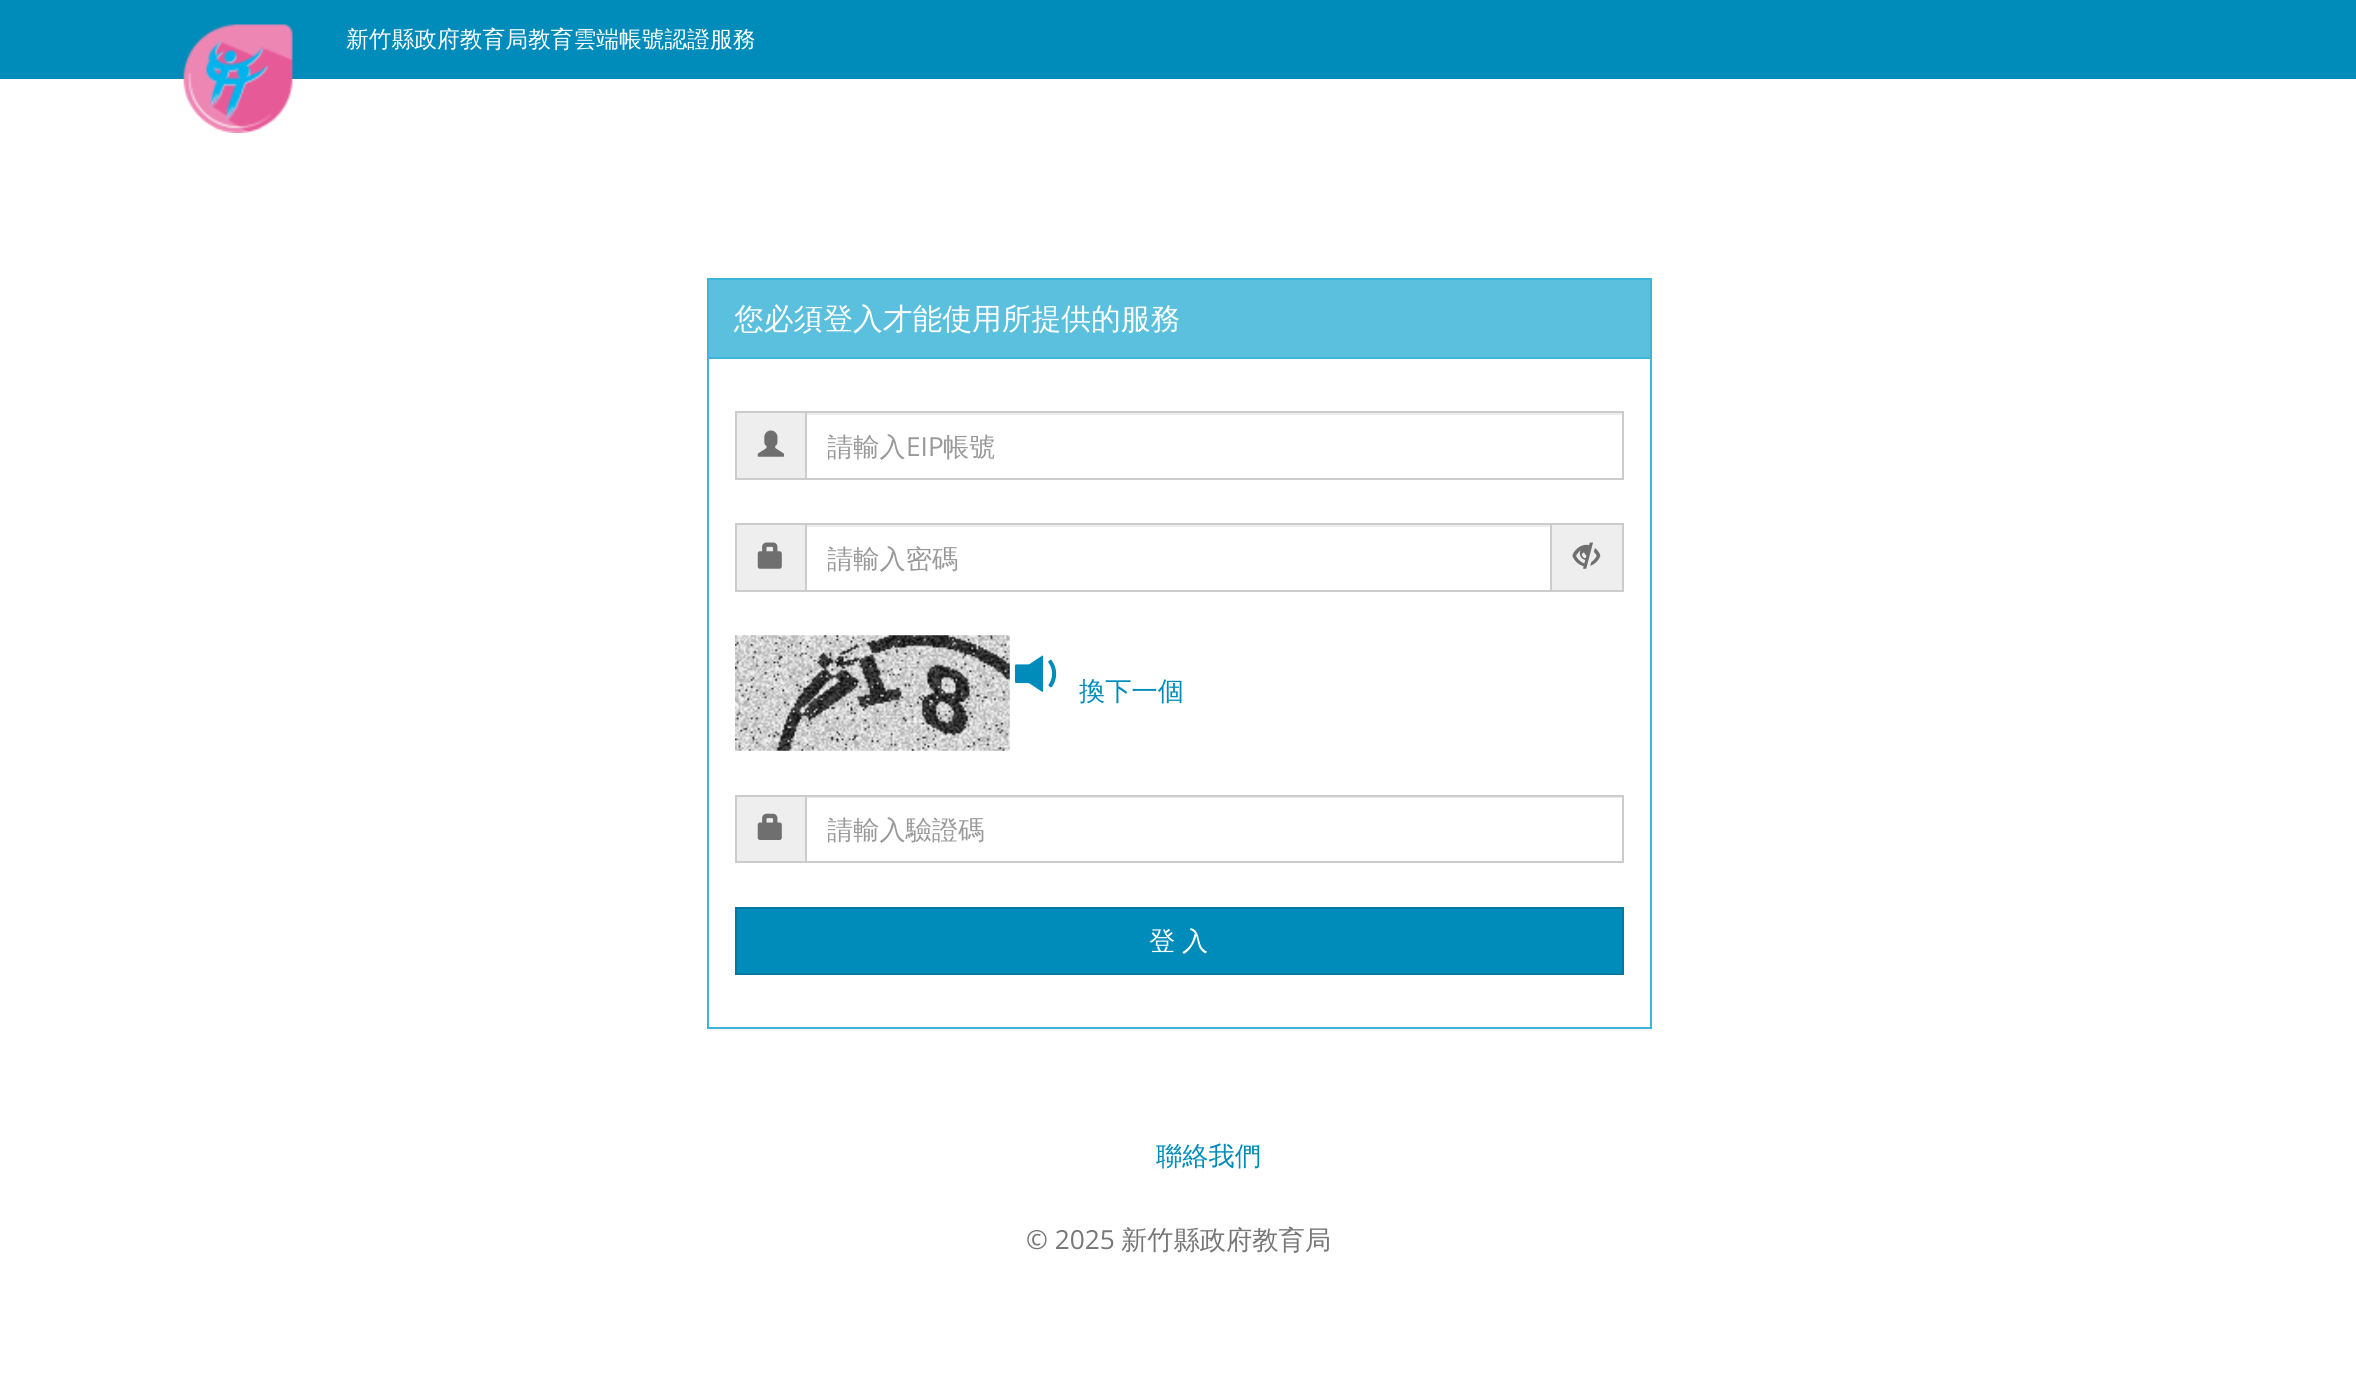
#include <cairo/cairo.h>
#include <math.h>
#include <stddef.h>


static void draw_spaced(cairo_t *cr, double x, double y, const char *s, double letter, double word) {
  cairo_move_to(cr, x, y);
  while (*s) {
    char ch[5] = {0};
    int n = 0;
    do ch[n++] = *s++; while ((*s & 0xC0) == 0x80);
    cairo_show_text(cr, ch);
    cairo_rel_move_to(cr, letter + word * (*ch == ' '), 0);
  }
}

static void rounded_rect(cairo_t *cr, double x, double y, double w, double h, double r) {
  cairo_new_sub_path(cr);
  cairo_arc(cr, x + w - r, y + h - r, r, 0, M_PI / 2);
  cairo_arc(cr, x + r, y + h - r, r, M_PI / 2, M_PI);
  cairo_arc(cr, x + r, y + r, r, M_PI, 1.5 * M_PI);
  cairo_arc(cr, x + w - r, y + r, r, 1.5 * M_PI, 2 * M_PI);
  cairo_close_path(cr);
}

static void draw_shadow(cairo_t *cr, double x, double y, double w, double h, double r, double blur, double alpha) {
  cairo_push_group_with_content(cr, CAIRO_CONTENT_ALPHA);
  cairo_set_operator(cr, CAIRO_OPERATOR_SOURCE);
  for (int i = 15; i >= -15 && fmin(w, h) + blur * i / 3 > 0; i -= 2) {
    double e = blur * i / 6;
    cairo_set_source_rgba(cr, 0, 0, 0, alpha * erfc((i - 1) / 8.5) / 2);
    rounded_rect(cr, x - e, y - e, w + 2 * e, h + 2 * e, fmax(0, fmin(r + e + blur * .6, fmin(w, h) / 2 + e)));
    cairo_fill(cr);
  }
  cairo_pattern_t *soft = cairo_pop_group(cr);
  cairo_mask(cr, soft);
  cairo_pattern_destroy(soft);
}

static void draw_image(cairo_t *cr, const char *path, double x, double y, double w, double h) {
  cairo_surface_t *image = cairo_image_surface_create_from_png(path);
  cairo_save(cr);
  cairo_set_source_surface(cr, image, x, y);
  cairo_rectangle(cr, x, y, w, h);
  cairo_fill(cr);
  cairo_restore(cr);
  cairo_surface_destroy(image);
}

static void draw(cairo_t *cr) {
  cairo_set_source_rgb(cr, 1, 1, 1);
  cairo_paint(cr);
  cairo_set_source_rgb(cr, 0, 140 / 255.0, 186 / 255.0);
  cairo_rectangle(cr, 0, 0, 2356, 79);
  cairo_fill(cr);
  draw_image(cr, "images/1.png", 183, 24, 110, 109);
  cairo_save(cr);
  cairo_rectangle(cr, 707, 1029, 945, 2);
  cairo_clip(cr);
  cairo_set_source_rgb(cr, 0, 0, 0);
  draw_shadow(cr, 707, 280, 945, 751, 0, 1, 0.05);
  cairo_restore(cr);
  cairo_rectangle(cr, 708, 279, 943, 749);
  cairo_set_source_rgb(cr, 61 / 255.0, 181 / 255.0, 216 / 255.0);
  cairo_stroke(cr);
  cairo_set_source_rgb(cr, 91 / 255.0, 192 / 255.0, 222 / 255.0);
  cairo_rectangle(cr, 709, 280, 941, 77);
  cairo_fill(cr);
  cairo_set_source_rgb(cr, 61 / 255.0, 181 / 255.0, 216 / 255.0);
  cairo_rectangle(cr, 709, 357, 941, 2);
  cairo_fill(cr);
  cairo_set_source_rgb(cr, 238 / 255.0, 238 / 255.0, 238 / 255.0);
  cairo_rectangle(cr, 737, 413, 68, 65);
  cairo_fill(cr);
  cairo_set_source_rgb(cr, 204 / 255.0, 204 / 255.0, 204 / 255.0);
  cairo_rectangle(cr, 735, 411, 70, 2);
  cairo_fill(cr);
  cairo_rectangle(cr, 735, 478, 70, 2);
  cairo_fill(cr);
  cairo_rectangle(cr, 735, 411, 2, 69);
  cairo_fill(cr);
  draw_image(cr, "images/2.png", 757, 430, 27, 27);
  cairo_set_source_rgb(cr, 236 / 255.0, 236 / 255.0, 236 / 255.0);
  cairo_rectangle(cr, 807, 413, 815, 2);
  cairo_fill(cr);
  cairo_rectangle(cr, 806, 412, 817, 67);
  cairo_set_source_rgb(cr, 204 / 255.0, 204 / 255.0, 204 / 255.0);
  cairo_stroke(cr);
  cairo_set_source_rgb(cr, 238 / 255.0, 238 / 255.0, 238 / 255.0);
  cairo_rectangle(cr, 737, 525, 68, 65);
  cairo_fill(cr);
  cairo_set_source_rgb(cr, 204 / 255.0, 204 / 255.0, 204 / 255.0);
  cairo_rectangle(cr, 735, 523, 70, 2);
  cairo_fill(cr);
  cairo_rectangle(cr, 735, 590, 70, 2);
  cairo_fill(cr);
  cairo_rectangle(cr, 735, 523, 2, 69);
  cairo_fill(cr);
  draw_image(cr, "images/3.png", 757, 542, 25, 27);
  cairo_set_source_rgb(cr, 236 / 255.0, 236 / 255.0, 236 / 255.0);
  cairo_rectangle(cr, 807, 525, 744, 2);
  cairo_fill(cr);
  cairo_rectangle(cr, 806, 524, 745, 67);
  cairo_set_source_rgb(cr, 204 / 255.0, 204 / 255.0, 204 / 255.0);
  cairo_stroke(cr);
  cairo_set_source_rgb(cr, 238 / 255.0, 238 / 255.0, 238 / 255.0);
  cairo_rectangle(cr, 1552, 525, 70, 65);
  cairo_fill(cr);
  cairo_set_source_rgb(cr, 204 / 255.0, 204 / 255.0, 204 / 255.0);
  cairo_rectangle(cr, 1552, 523, 72, 2);
  cairo_fill(cr);
  cairo_rectangle(cr, 1622, 523, 2, 69);
  cairo_fill(cr);
  cairo_rectangle(cr, 1552, 590, 72, 2);
  cairo_fill(cr);
  draw_image(cr, "images/4.png", 1572, 542, 29, 27);
  draw_image(cr, "images/5.png", 735, 635, 275, 116);
  draw_image(cr, "images/6.png", 1015, 655, 42, 37);
  cairo_set_source_rgb(cr, 238 / 255.0, 238 / 255.0, 238 / 255.0);
  cairo_rectangle(cr, 737, 797, 68, 64);
  cairo_fill(cr);
  cairo_set_source_rgb(cr, 204 / 255.0, 204 / 255.0, 204 / 255.0);
  cairo_rectangle(cr, 735, 795, 70, 2);
  cairo_fill(cr);
  cairo_rectangle(cr, 735, 861, 70, 2);
  cairo_fill(cr);
  cairo_rectangle(cr, 735, 795, 2, 68);
  cairo_fill(cr);
  draw_image(cr, "images/7.png", 757, 813, 25, 27);
  cairo_set_source_rgb(cr, 236 / 255.0, 236 / 255.0, 236 / 255.0);
  cairo_rectangle(cr, 807, 797, 815, 1);
  cairo_fill(cr);
  cairo_rectangle(cr, 806, 796, 817, 66);
  cairo_set_source_rgb(cr, 204 / 255.0, 204 / 255.0, 204 / 255.0);
  cairo_stroke(cr);
  cairo_set_source_rgb(cr, 0, 140 / 255.0, 186 / 255.0);
  cairo_rectangle(cr, 736, 908, 887, 66);
  cairo_fill_preserve(cr);
  cairo_set_source_rgb(cr, 0, 121 / 255.0, 161 / 255.0);
  cairo_stroke(cr);
  cairo_select_font_face(cr, "WenQuanYi Zen Hei Medium", CAIRO_FONT_SLANT_NORMAL, CAIRO_FONT_WEIGHT_NORMAL);
  cairo_set_font_size(cr, 22.75);
  cairo_set_source_rgb(cr, 1, 1, 1);
  cairo_move_to(cr, 346, 47);
  cairo_show_text(cr, "新竹縣政府教育局教育雲端帳號認證服務");
  cairo_set_font_size(cr, 29.75);
  cairo_move_to(cr, 734, 329);
  cairo_show_text(cr, "您必須登入才能使用所提供的服務");
  cairo_save(cr);
  cairo_rectangle(cr, 828, 427, 773, 37);
  cairo_clip(cr);
  cairo_set_font_size(cr, 26.25);
  cairo_set_source_rgb(cr, 153 / 255.0, 153 / 255.0, 153 / 255.0);
  cairo_move_to(cr, 827, 456);
  cairo_show_text(cr, "請輸入");
  cairo_restore(cr);
  cairo_select_font_face(cr, "Open Sans", CAIRO_FONT_SLANT_NORMAL, CAIRO_FONT_WEIGHT_NORMAL);
  cairo_set_font_size(cr, 26.25);
  cairo_set_source_rgb(cr, 153 / 255.0, 153 / 255.0, 153 / 255.0);
  cairo_move_to(cr, 906, 456);
  cairo_show_text(cr, "EIP");
  cairo_select_font_face(cr, "WenQuanYi Zen Hei Medium", CAIRO_FONT_SLANT_NORMAL, CAIRO_FONT_WEIGHT_NORMAL);
  cairo_move_to(cr, 943, 456);
  cairo_show_text(cr, "帳號");
  cairo_save(cr);
  cairo_rectangle(cr, 828, 539, 702, 37);
  cairo_clip(cr);
  cairo_move_to(cr, 827, 568);
  cairo_show_text(cr, "請輸入密碼");
  cairo_restore(cr);
  cairo_set_source_rgb(cr, 0, 140 / 255.0, 186 / 255.0);
  cairo_move_to(cr, 1079, 700);
  cairo_show_text(cr, "換下一個");
  cairo_save(cr);
  cairo_rectangle(cr, 828, 810, 773, 37);
  cairo_clip(cr);
  cairo_set_source_rgb(cr, 153 / 255.0, 153 / 255.0, 153 / 255.0);
  cairo_move_to(cr, 827, 839);
  cairo_show_text(cr, "請輸入驗證碼");
  cairo_restore(cr);
  cairo_set_source_rgb(cr, 1, 1, 1);
  draw_spaced(cr, 1149, 950, "登 入", 0, -1);
  cairo_set_source_rgb(cr, 0, 140 / 255.0, 186 / 255.0);
  cairo_move_to(cr, 1156, 1165);
  cairo_show_text(cr, "聯絡我們");
  cairo_select_font_face(cr, "Open Sans", CAIRO_FONT_SLANT_NORMAL, CAIRO_FONT_WEIGHT_NORMAL);
  cairo_set_source_rgb(cr, 119 / 255.0, 119 / 255.0, 119 / 255.0);
  cairo_move_to(cr, 1026, 1249);
  cairo_show_text(cr, "© 2025");
  cairo_select_font_face(cr, "WenQuanYi Zen Hei Medium", CAIRO_FONT_SLANT_NORMAL, CAIRO_FONT_WEIGHT_NORMAL);
  cairo_move_to(cr, 1121, 1249);
  cairo_show_text(cr, "新竹縣政府教育局");
}

int main(void) {
  cairo_surface_t *surface = cairo_image_surface_create(CAIRO_FORMAT_RGB24, 2356, 1385);
  cairo_t *cr = cairo_create(surface);
  cairo_font_options_t *options = cairo_font_options_create();
  cairo_font_options_set_hint_metrics(options, CAIRO_HINT_METRICS_OFF);
  cairo_font_options_set_hint_style(options, CAIRO_HINT_STYLE_NONE);
  cairo_set_font_options(cr, options);
  cairo_set_miter_limit(cr, 4);
  draw(cr);
  cairo_surface_write_to_png(surface, "out.png");
  cairo_font_options_destroy(options);
  cairo_destroy(cr);
  cairo_surface_destroy(surface);
  return 0;
}
